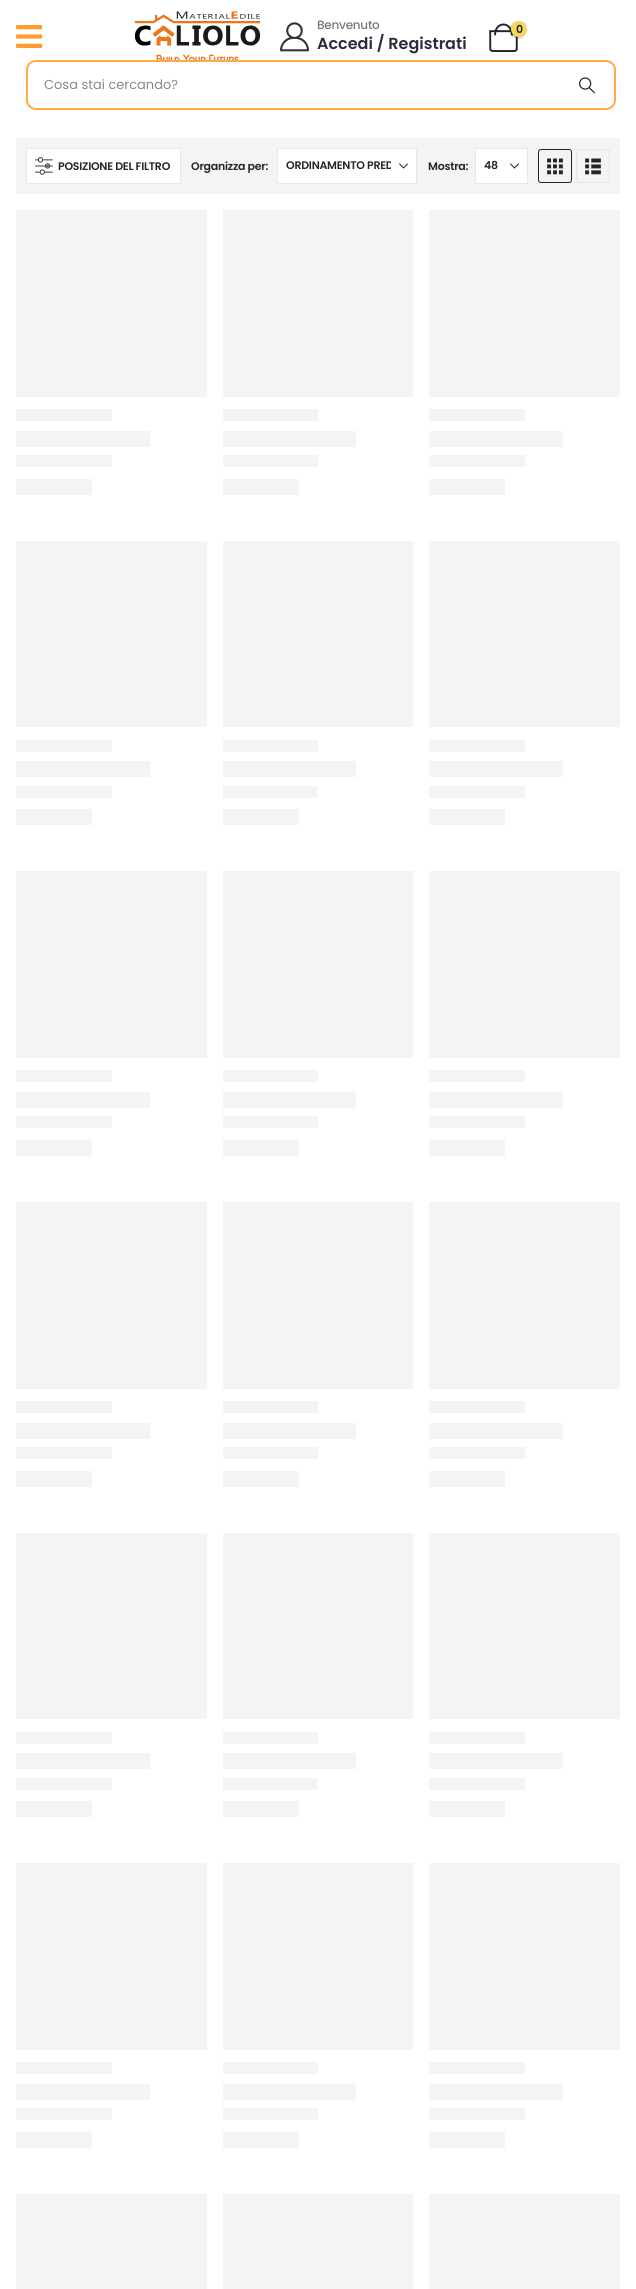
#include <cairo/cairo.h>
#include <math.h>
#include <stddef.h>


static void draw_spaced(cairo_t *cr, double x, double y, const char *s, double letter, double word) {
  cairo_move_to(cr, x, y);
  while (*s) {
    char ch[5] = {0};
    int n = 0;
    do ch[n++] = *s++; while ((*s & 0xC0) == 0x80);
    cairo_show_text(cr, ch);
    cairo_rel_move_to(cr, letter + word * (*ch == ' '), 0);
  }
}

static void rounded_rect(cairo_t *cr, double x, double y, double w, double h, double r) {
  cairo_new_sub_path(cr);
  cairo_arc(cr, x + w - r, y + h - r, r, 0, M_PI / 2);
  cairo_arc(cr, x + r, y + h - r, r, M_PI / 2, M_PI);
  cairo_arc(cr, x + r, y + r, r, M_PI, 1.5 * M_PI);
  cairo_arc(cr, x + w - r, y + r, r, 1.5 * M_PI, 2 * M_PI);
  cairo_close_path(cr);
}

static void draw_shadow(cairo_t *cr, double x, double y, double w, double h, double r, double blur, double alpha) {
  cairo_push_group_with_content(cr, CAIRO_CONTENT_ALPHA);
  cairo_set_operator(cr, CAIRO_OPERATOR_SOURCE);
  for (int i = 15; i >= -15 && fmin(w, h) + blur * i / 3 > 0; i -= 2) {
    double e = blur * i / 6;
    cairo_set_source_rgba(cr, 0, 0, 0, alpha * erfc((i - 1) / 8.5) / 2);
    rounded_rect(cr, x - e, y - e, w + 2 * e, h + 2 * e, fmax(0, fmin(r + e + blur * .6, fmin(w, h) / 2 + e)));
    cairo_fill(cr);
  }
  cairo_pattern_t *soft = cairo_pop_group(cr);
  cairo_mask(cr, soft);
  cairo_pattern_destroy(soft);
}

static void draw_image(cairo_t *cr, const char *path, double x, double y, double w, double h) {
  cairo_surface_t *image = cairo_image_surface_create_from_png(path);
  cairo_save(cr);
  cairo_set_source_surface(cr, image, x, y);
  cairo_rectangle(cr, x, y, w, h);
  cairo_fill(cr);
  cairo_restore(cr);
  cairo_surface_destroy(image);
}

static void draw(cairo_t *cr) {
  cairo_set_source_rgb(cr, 1, 1, 1);
  cairo_paint(cr);
  draw_image(cr, "images/1.png", 16, 25, 27, 23);
  draw_image(cr, "images/2.png", 134, 11, 127, 49);
  draw_image(cr, "images/3.png", 280, 22, 29, 30);
  draw_image(cr, "images/4.png", 489, 23, 29, 29);
  cairo_set_source_rgb(cr, 0, 0, 0);
  draw_shadow(cr, 510, 22, 16, 16, 8, 1, 0.3);
  cairo_set_source_rgb(cr, 249 / 255.0, 215 / 255.0, 89 / 255.0);
  cairo_arc(cr, 519, 29, 8, 0, 2 * M_PI);
  cairo_fill(cr);
  rounded_rect(cr, 27, 61, 588, 48, 9);
  cairo_set_source_rgb(cr, 1, 170 / 255.0, 74 / 255.0);
  cairo_stroke(cr);
  draw_image(cr, "images/5.png", 579, 77, 16, 17);
  cairo_set_source_rgb(cr, 244 / 255.0, 244 / 255.0, 244 / 255.0);
  cairo_rectangle(cr, 16, 138, 604, 56);
  cairo_fill(cr);
  cairo_set_source_rgb(cr, 1, 1, 1);
  cairo_rectangle(cr, 26.5, 148.5, 154, 35);
  cairo_fill_preserve(cr);
  cairo_set_source_rgb(cr, 231 / 255.0, 231 / 255.0, 231 / 255.0);
  cairo_set_line_width(cr, 1);
  cairo_stroke(cr);
  draw_image(cr, "images/6.png", 35, 157, 18, 18);
  cairo_set_source_rgb(cr, 1, 1, 1);
  cairo_rectangle(cr, 278, 149, 138, 34);
  cairo_fill(cr);
  draw_image(cr, "images/7.png", 399, 163, 9, 6);
  cairo_rectangle(cr, 277.5, 148.5, 139, 35);
  cairo_set_source_rgb(cr, 231 / 255.0, 231 / 255.0, 231 / 255.0);
  cairo_stroke(cr);
  cairo_set_source_rgb(cr, 1, 1, 1);
  cairo_rectangle(cr, 476, 149, 51, 34);
  cairo_fill(cr);
  draw_image(cr, "images/7.png", 510, 163, 9, 6);
  cairo_rectangle(cr, 475.5, 148.5, 52, 35);
  cairo_set_source_rgb(cr, 231 / 255.0, 231 / 255.0, 231 / 255.0);
  cairo_stroke(cr);
  rounded_rect(cr, 538.5, 149.5, 33, 33, 2.5);
  cairo_set_source_rgb(cr, 34 / 255.0, 37 / 255.0, 41 / 255.0);
  cairo_stroke(cr);
  draw_image(cr, "images/8.png", 547, 158, 16, 17);
  rounded_rect(cr, 576.5, 149.5, 33, 33, 2.5);
  cairo_set_source_rgb(cr, 231 / 255.0, 231 / 255.0, 231 / 255.0);
  cairo_stroke(cr);
  draw_image(cr, "images/9.png", 585, 158, 16, 17);
  cairo_set_source_rgb(cr, 244 / 255.0, 244 / 255.0, 244 / 255.0);
  cairo_rectangle(cr, 16, 479, 76, 16);
  cairo_fill(cr);
  cairo_rectangle(cr, 16, 455, 96, 12);
  cairo_fill(cr);
  cairo_rectangle(cr, 16, 431, 134, 16);
  cairo_fill(cr);
  cairo_rectangle(cr, 16, 409, 96, 12);
  cairo_fill(cr);
  cairo_rectangle(cr, 16, 210, 191, 187);
  cairo_fill(cr);
  cairo_rectangle(cr, 223, 479, 76, 16);
  cairo_fill(cr);
  cairo_rectangle(cr, 223, 455, 95, 12);
  cairo_fill(cr);
  cairo_rectangle(cr, 223, 431, 133, 16);
  cairo_fill(cr);
  cairo_rectangle(cr, 223, 409, 95, 12);
  cairo_fill(cr);
  cairo_rectangle(cr, 223, 210, 190, 187);
  cairo_fill(cr);
  cairo_rectangle(cr, 429, 479, 76, 16);
  cairo_fill(cr);
  cairo_rectangle(cr, 429, 455, 96, 12);
  cairo_fill(cr);
  cairo_rectangle(cr, 429, 431, 134, 16);
  cairo_fill(cr);
  cairo_rectangle(cr, 429, 409, 96, 12);
  cairo_fill(cr);
  cairo_rectangle(cr, 429, 210, 191, 187);
  cairo_fill(cr);
  cairo_rectangle(cr, 16, 809, 76, 16);
  cairo_fill(cr);
  cairo_rectangle(cr, 16, 786, 96, 12);
  cairo_fill(cr);
  cairo_rectangle(cr, 16, 761, 134, 16);
  cairo_fill(cr);
  cairo_rectangle(cr, 16, 740, 96, 12);
  cairo_fill(cr);
  cairo_rectangle(cr, 16, 541, 191, 186);
  cairo_fill(cr);
  cairo_rectangle(cr, 223, 809, 76, 16);
  cairo_fill(cr);
  cairo_rectangle(cr, 223, 786, 95, 12);
  cairo_fill(cr);
  cairo_rectangle(cr, 223, 761, 133, 16);
  cairo_fill(cr);
  cairo_rectangle(cr, 223, 740, 95, 12);
  cairo_fill(cr);
  cairo_rectangle(cr, 223, 541, 190, 186);
  cairo_fill(cr);
  cairo_rectangle(cr, 429, 809, 76, 16);
  cairo_fill(cr);
  cairo_rectangle(cr, 429, 786, 96, 12);
  cairo_fill(cr);
  cairo_rectangle(cr, 429, 761, 134, 16);
  cairo_fill(cr);
  cairo_rectangle(cr, 429, 740, 96, 12);
  cairo_fill(cr);
  cairo_rectangle(cr, 429, 541, 191, 186);
  cairo_fill(cr);
  cairo_rectangle(cr, 16, 1140, 76, 16);
  cairo_fill(cr);
  cairo_rectangle(cr, 16, 1116, 96, 12);
  cairo_fill(cr);
  cairo_rectangle(cr, 16, 1092, 134, 16);
  cairo_fill(cr);
  cairo_rectangle(cr, 16, 1070, 96, 12);
  cairo_fill(cr);
  cairo_rectangle(cr, 16, 871, 191, 187);
  cairo_fill(cr);
  cairo_rectangle(cr, 223, 1140, 76, 16);
  cairo_fill(cr);
  cairo_rectangle(cr, 223, 1116, 95, 12);
  cairo_fill(cr);
  cairo_rectangle(cr, 223, 1092, 133, 16);
  cairo_fill(cr);
  cairo_rectangle(cr, 223, 1070, 95, 12);
  cairo_fill(cr);
  cairo_rectangle(cr, 223, 871, 190, 187);
  cairo_fill(cr);
  cairo_rectangle(cr, 429, 1140, 76, 16);
  cairo_fill(cr);
  cairo_rectangle(cr, 429, 1116, 96, 12);
  cairo_fill(cr);
  cairo_rectangle(cr, 429, 1092, 134, 16);
  cairo_fill(cr);
  cairo_rectangle(cr, 429, 1070, 96, 12);
  cairo_fill(cr);
  cairo_rectangle(cr, 429, 871, 191, 187);
  cairo_fill(cr);
  cairo_rectangle(cr, 16, 1471, 76, 16);
  cairo_fill(cr);
  cairo_rectangle(cr, 16, 1447, 96, 12);
  cairo_fill(cr);
  cairo_rectangle(cr, 16, 1423, 134, 16);
  cairo_fill(cr);
  cairo_rectangle(cr, 16, 1401, 96, 12);
  cairo_fill(cr);
  cairo_rectangle(cr, 16, 1202, 191, 187);
  cairo_fill(cr);
  cairo_rectangle(cr, 223, 1471, 76, 16);
  cairo_fill(cr);
  cairo_rectangle(cr, 223, 1447, 95, 12);
  cairo_fill(cr);
  cairo_rectangle(cr, 223, 1423, 133, 16);
  cairo_fill(cr);
  cairo_rectangle(cr, 223, 1401, 95, 12);
  cairo_fill(cr);
  cairo_rectangle(cr, 223, 1202, 190, 187);
  cairo_fill(cr);
  cairo_rectangle(cr, 429, 1471, 76, 16);
  cairo_fill(cr);
  cairo_rectangle(cr, 429, 1447, 96, 12);
  cairo_fill(cr);
  cairo_rectangle(cr, 429, 1423, 134, 16);
  cairo_fill(cr);
  cairo_rectangle(cr, 429, 1401, 96, 12);
  cairo_fill(cr);
  cairo_rectangle(cr, 429, 1202, 191, 187);
  cairo_fill(cr);
  cairo_rectangle(cr, 16, 1801, 76, 16);
  cairo_fill(cr);
  cairo_rectangle(cr, 16, 1778, 96, 12);
  cairo_fill(cr);
  cairo_rectangle(cr, 16, 1753, 134, 16);
  cairo_fill(cr);
  cairo_rectangle(cr, 16, 1732, 96, 12);
  cairo_fill(cr);
  cairo_rectangle(cr, 16, 1533, 191, 186);
  cairo_fill(cr);
  cairo_rectangle(cr, 223, 1801, 76, 16);
  cairo_fill(cr);
  cairo_rectangle(cr, 223, 1778, 95, 12);
  cairo_fill(cr);
  cairo_rectangle(cr, 223, 1753, 133, 16);
  cairo_fill(cr);
  cairo_rectangle(cr, 223, 1732, 95, 12);
  cairo_fill(cr);
  cairo_rectangle(cr, 223, 1533, 190, 186);
  cairo_fill(cr);
  cairo_rectangle(cr, 429, 1801, 76, 16);
  cairo_fill(cr);
  cairo_rectangle(cr, 429, 1778, 96, 12);
  cairo_fill(cr);
  cairo_rectangle(cr, 429, 1753, 134, 16);
  cairo_fill(cr);
  cairo_rectangle(cr, 429, 1732, 96, 12);
  cairo_fill(cr);
  cairo_rectangle(cr, 429, 1533, 191, 186);
  cairo_fill(cr);
  cairo_rectangle(cr, 16, 2132, 76, 16);
  cairo_fill(cr);
  cairo_rectangle(cr, 16, 2108, 96, 12);
  cairo_fill(cr);
  cairo_rectangle(cr, 16, 2084, 134, 16);
  cairo_fill(cr);
  cairo_rectangle(cr, 16, 2062, 96, 12);
  cairo_fill(cr);
  cairo_rectangle(cr, 16, 1863, 191, 187);
  cairo_fill(cr);
  cairo_rectangle(cr, 223, 2132, 76, 16);
  cairo_fill(cr);
  cairo_rectangle(cr, 223, 2108, 95, 12);
  cairo_fill(cr);
  cairo_rectangle(cr, 223, 2084, 133, 16);
  cairo_fill(cr);
  cairo_rectangle(cr, 223, 2062, 95, 12);
  cairo_fill(cr);
  cairo_rectangle(cr, 223, 1863, 190, 187);
  cairo_fill(cr);
  cairo_rectangle(cr, 429, 2132, 76, 16);
  cairo_fill(cr);
  cairo_rectangle(cr, 429, 2108, 96, 12);
  cairo_fill(cr);
  cairo_rectangle(cr, 429, 2084, 134, 16);
  cairo_fill(cr);
  cairo_rectangle(cr, 429, 2062, 96, 12);
  cairo_fill(cr);
  cairo_rectangle(cr, 429, 1863, 191, 187);
  cairo_fill(cr);
  cairo_rectangle(cr, 16, 2194, 191, 95);
  cairo_fill(cr);
  cairo_rectangle(cr, 223, 2194, 190, 95);
  cairo_fill(cr);
  cairo_rectangle(cr, 429, 2194, 191, 95);
  cairo_fill(cr);
  cairo_select_font_face(cr, "Poppins Medium", CAIRO_FONT_SLANT_NORMAL, CAIRO_FONT_WEIGHT_NORMAL);
  cairo_set_font_size(cr, 12);
  cairo_set_source_rgb(cr, 119 / 255.0, 119 / 255.0, 119 / 255.0);
  draw_spaced(cr, 317, 29, "Benvenuto", -0.25, 0);
  cairo_select_font_face(cr, "Poppins SemiBold", CAIRO_FONT_SLANT_NORMAL, CAIRO_FONT_WEIGHT_NORMAL);
  cairo_set_font_size(cr, 16);
  cairo_set_source_rgb(cr, 40 / 255.0, 45 / 255.0, 59 / 255.0);
  cairo_move_to(cr, 317, 49);
  cairo_show_text(cr, "Accedi / Registrati");
  cairo_set_font_size(cr, 11);
  cairo_set_source_rgb(cr, 34 / 255.0, 37 / 255.0, 41 / 255.0);
  cairo_move_to(cr, 516, 33);
  cairo_show_text(cr, "0");
  cairo_select_font_face(cr, "Poppins", CAIRO_FONT_SLANT_NORMAL, CAIRO_FONT_WEIGHT_NORMAL);
  cairo_set_font_size(cr, 13);
  cairo_set_source_rgb(cr, 136 / 255.0, 136 / 255.0, 136 / 255.0);
  cairo_move_to(cr, 44, 89);
  cairo_show_text(cr, "Cosa stai cercando?");
  cairo_select_font_face(cr, "Poppins SemiBold", CAIRO_FONT_SLANT_NORMAL, CAIRO_FONT_WEIGHT_NORMAL);
  cairo_set_font_size(cr, 11);
  cairo_set_source_rgb(cr, 34 / 255.0, 37 / 255.0, 41 / 255.0);
  draw_spaced(cr, 58, 170, "POSIZIONE DEL FILTRO", -0.25, 0);
  draw_spaced(cr, 191, 170, "Organizza per:", -0.25, 0);
  cairo_save(cr);
  cairo_rectangle(cr, 286, 158, 105, 16);
  cairo_clip(cr);
  draw_spaced(cr, 286, 169, "ORDINAMENTO PRED", -0.25, 0);
  cairo_restore(cr);
  draw_spaced(cr, 428, 170, "Mostra:", -0.25, 0);
  draw_spaced(cr, 484, 169, "48", -0.25, 0);
}

int main(void) {
  cairo_surface_t *surface = cairo_image_surface_create(CAIRO_FORMAT_RGB24, 636, 2289);
  cairo_t *cr = cairo_create(surface);
  cairo_font_options_t *options = cairo_font_options_create();
  cairo_font_options_set_hint_metrics(options, CAIRO_HINT_METRICS_OFF);
  cairo_font_options_set_hint_style(options, CAIRO_HINT_STYLE_NONE);
  cairo_set_font_options(cr, options);
  cairo_set_miter_limit(cr, 4);
  draw(cr);
  cairo_surface_write_to_png(surface, "out.png");
  cairo_font_options_destroy(options);
  cairo_destroy(cr);
  cairo_surface_destroy(surface);
  return 0;
}
